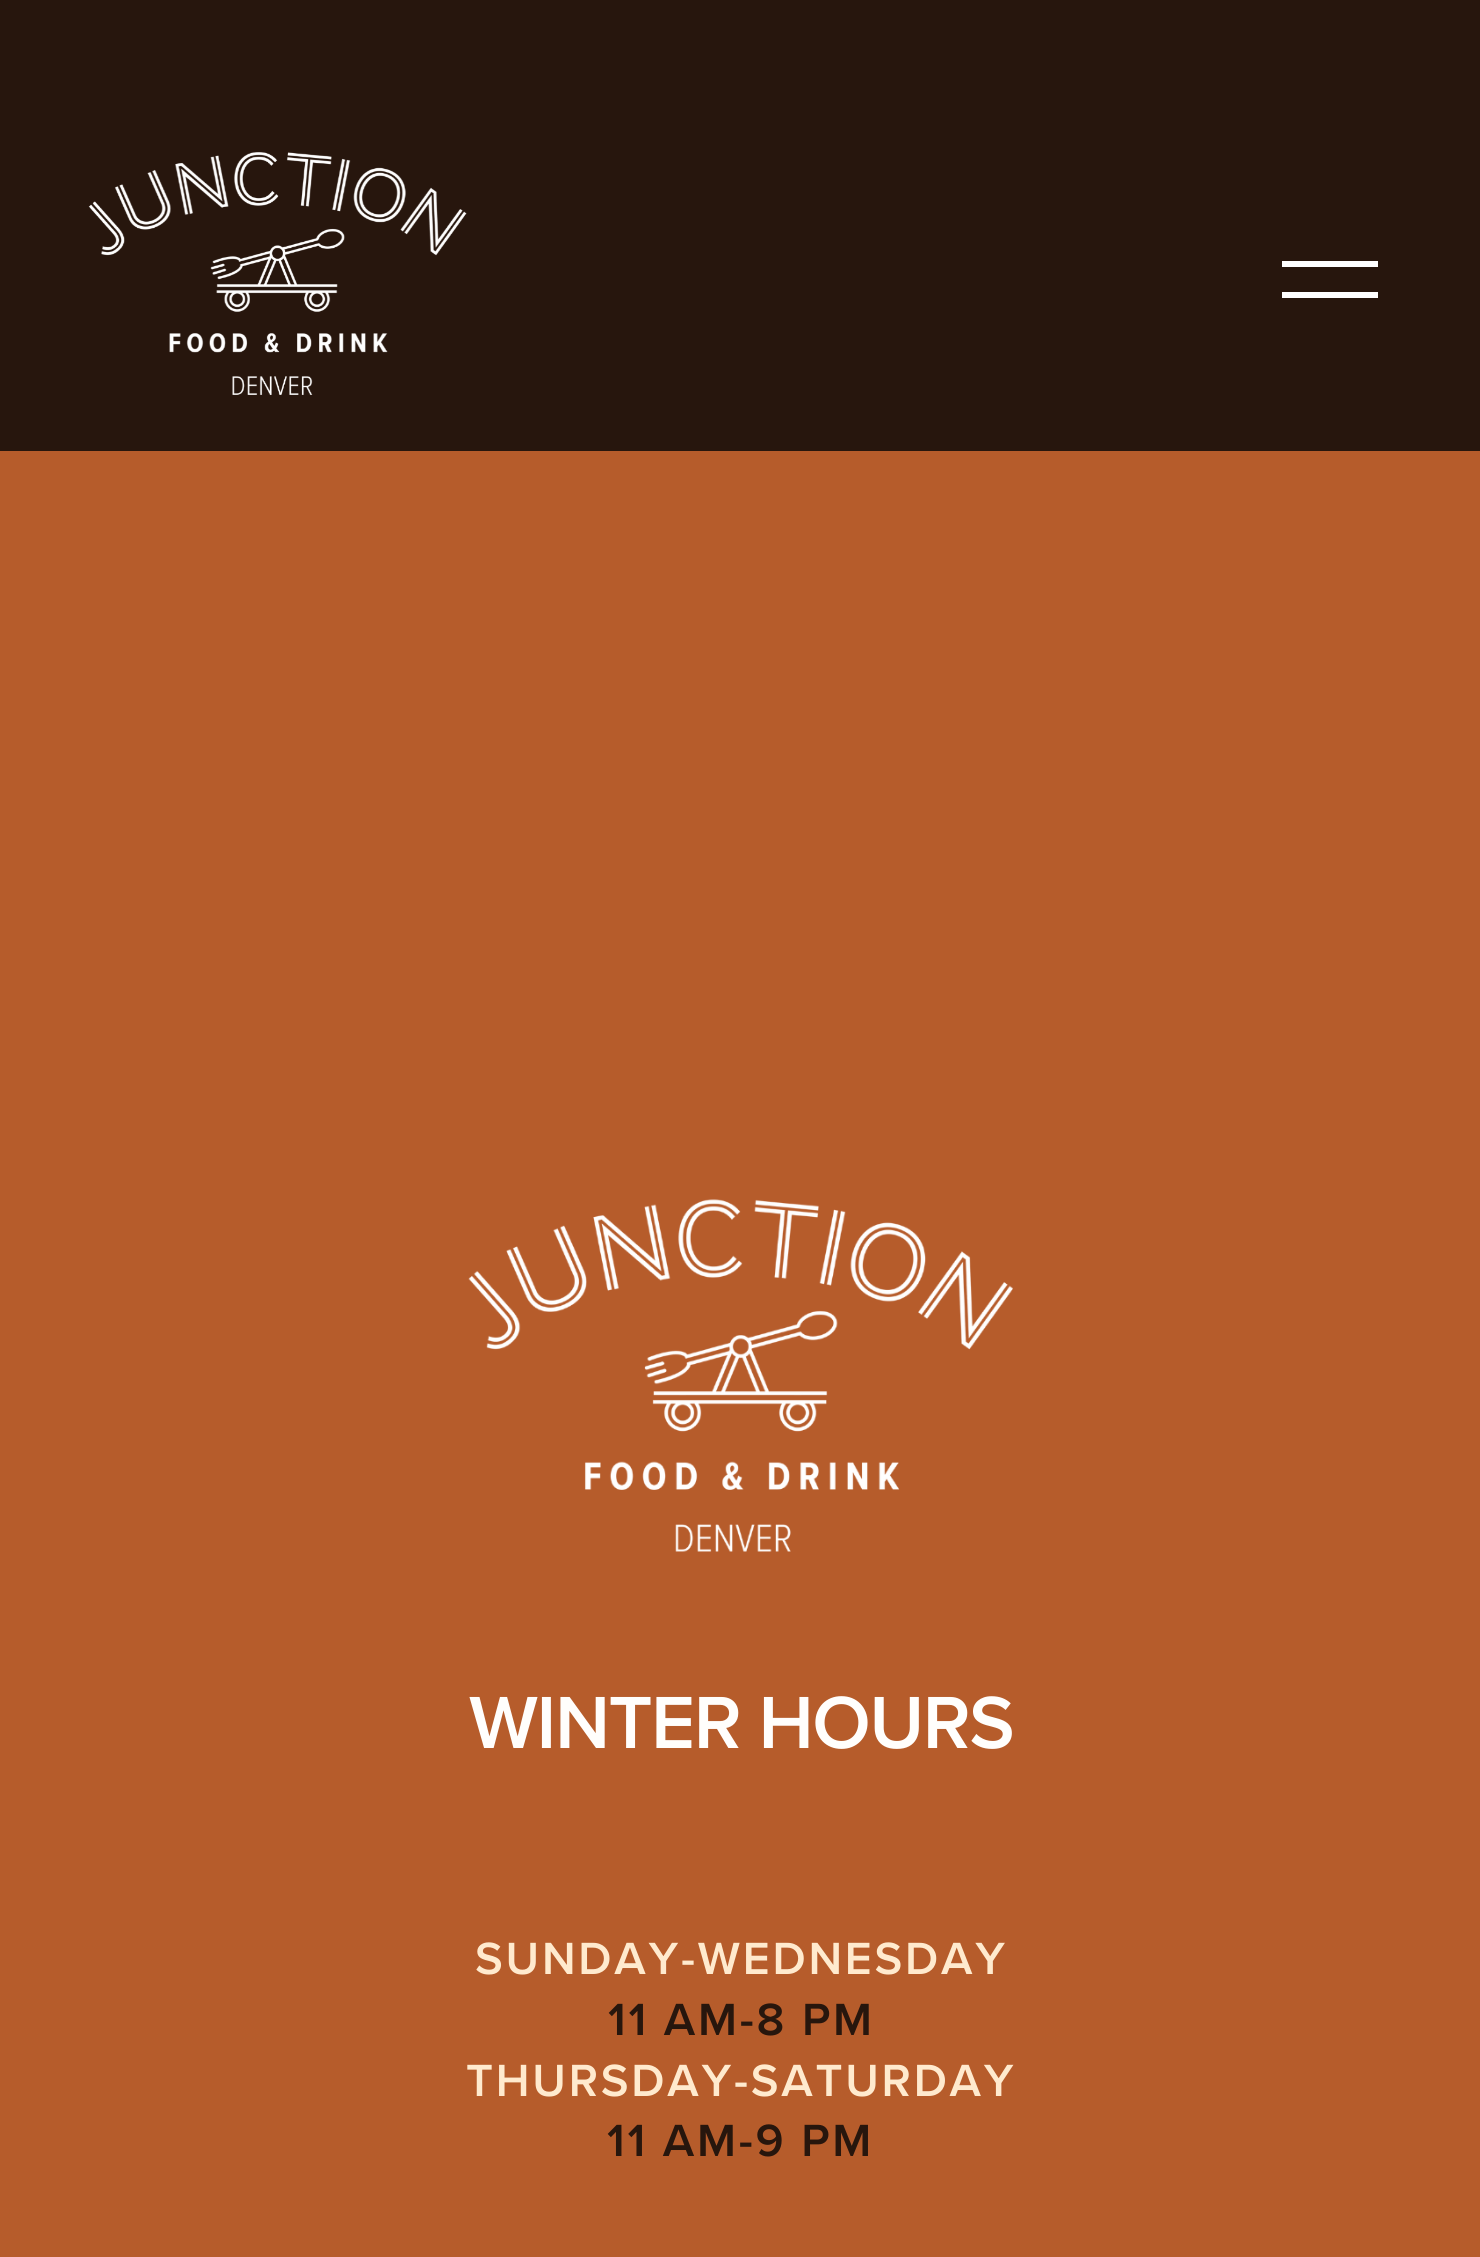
#include <cairo/cairo.h>
#include <math.h>
#include <stddef.h>


static void draw_spaced(cairo_t *cr, double x, double y, const char *s, double letter, double word) {
  cairo_move_to(cr, x, y);
  while (*s) {
    char ch[5] = {0};
    int n = 0;
    do ch[n++] = *s++; while ((*s & 0xC0) == 0x80);
    cairo_show_text(cr, ch);
    cairo_rel_move_to(cr, letter + word * (*ch == ' '), 0);
  }
}

static void draw_image(cairo_t *cr, const char *path, double x, double y, double w, double h) {
  cairo_surface_t *image = cairo_image_surface_create_from_png(path);
  cairo_save(cr);
  cairo_set_source_surface(cr, image, x, y);
  cairo_rectangle(cr, x, y, w, h);
  cairo_fill(cr);
  cairo_restore(cr);
  cairo_surface_destroy(image);
}

static void draw(cairo_t *cr) {
  cairo_set_source_rgb(cr, 182 / 255.0, 92 / 255.0, 43 / 255.0);
  cairo_paint(cr);
  cairo_set_source_rgb(cr, 39 / 255.0, 22 / 255.0, 13 / 255.0);
  cairo_rectangle(cr, 0, 0, 1480, 451);
  cairo_fill(cr);
  draw_image(cr, "images/1.png", 88, 152, 379, 243);
  cairo_set_source_rgb(cr, 1, 1, 1);
  cairo_rectangle(cr, 1282, 261, 96, 6);
  cairo_fill(cr);
  cairo_rectangle(cr, 1282, 292, 96, 6);
  cairo_fill(cr);
  draw_image(cr, "images/2.png", 468, 1199, 545, 353);
  cairo_select_font_face(cr, "Proxima Nova SemiBold", CAIRO_FONT_SLANT_NORMAL, CAIRO_FONT_WEIGHT_NORMAL);
  cairo_set_font_size(cr, 76.5);
  cairo_set_source_rgb(cr, 1, 254 / 255.0, 252 / 255.0);
  draw_spaced(cr, 469, 1748, "WINTER HOURS", -1.5, 0);
  cairo_set_font_size(cr, 46.75);
  cairo_set_source_rgb(cr, 1, 234 / 255.0, 206 / 255.0);
  draw_spaced(cr, 475, 1974, "SUNDAY-WEDNESDAY", 2.75, 0);
  cairo_set_source_rgb(cr, 39 / 255.0, 22 / 255.0, 13 / 255.0);
  draw_spaced(cr, 608, 2035, "11 AM-8 PM", 2.75, 0);
  cairo_set_source_rgb(cr, 1, 234 / 255.0, 206 / 255.0);
  draw_spaced(cr, 466, 2096, "THURSDAY-SATURDAY", 2.75, 0);
  cairo_set_source_rgb(cr, 39 / 255.0, 22 / 255.0, 13 / 255.0);
  draw_spaced(cr, 607, 2156, "11 AM-9 PM", 2.75, 0);
}

int main(void) {
  cairo_surface_t *surface = cairo_image_surface_create(CAIRO_FORMAT_RGB24, 1480, 2257);
  cairo_t *cr = cairo_create(surface);
  cairo_font_options_t *options = cairo_font_options_create();
  cairo_font_options_set_hint_metrics(options, CAIRO_HINT_METRICS_OFF);
  cairo_font_options_set_hint_style(options, CAIRO_HINT_STYLE_NONE);
  cairo_set_font_options(cr, options);
  cairo_set_miter_limit(cr, 4);
  draw(cr);
  cairo_surface_write_to_png(surface, "out.png");
  cairo_font_options_destroy(options);
  cairo_destroy(cr);
  cairo_surface_destroy(surface);
  return 0;
}
